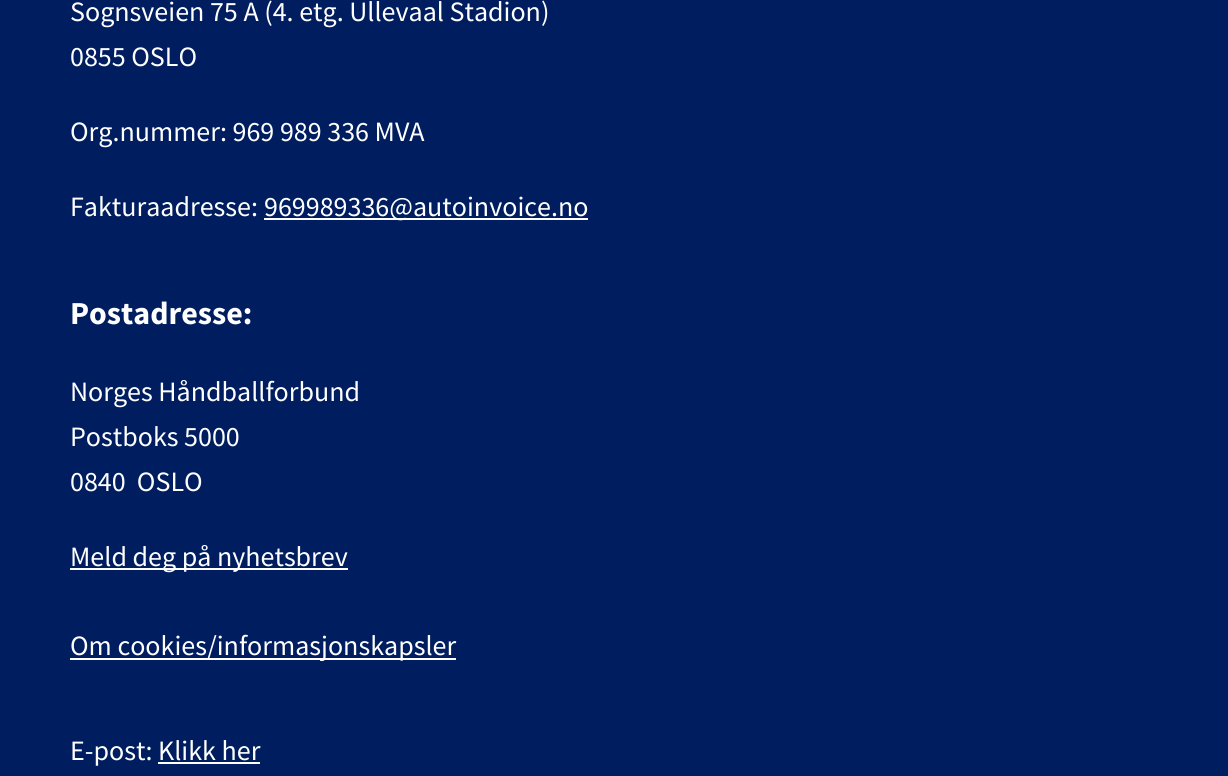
#include <cairo/cairo.h>
#include <math.h>
#include <stddef.h>


static void draw(cairo_t *cr) {
  cairo_set_source_rgb(cr, 0, 30 / 255.0, 95 / 255.0);
  cairo_paint(cr);
  cairo_set_source_rgb(cr, 1, 1, 1);
  cairo_rectangle(cr, 264, 218, 324, 2);
  cairo_fill(cr);
  cairo_rectangle(cr, 70, 568, 278, 2);
  cairo_fill(cr);
  cairo_rectangle(cr, 70, 658, 386, 2);
  cairo_fill(cr);
  cairo_rectangle(cr, 158, 762, 102, 2);
  cairo_fill(cr);
  cairo_select_font_face(cr, "Source Sans Pro", CAIRO_FONT_SLANT_NORMAL, CAIRO_FONT_WEIGHT_NORMAL);
  cairo_set_font_size(cr, 28);
  cairo_move_to(cr, 70, 21);
  cairo_show_text(cr, "Sognsveien 75 A (4. etg. Ullevaal Stadion)");
  cairo_move_to(cr, 70, 66);
  cairo_show_text(cr, "0855 OSLO");
  cairo_move_to(cr, 70, 141);
  cairo_show_text(cr, "Org.nummer: 969 989 336 MVA");
  cairo_move_to(cr, 70, 216);
  cairo_show_text(cr, "Fakturaadresse:");
  cairo_move_to(cr, 264, 216);
  cairo_show_text(cr, "969989336@autoinvoice.no");
  cairo_select_font_face(cr, "Source Sans Pro", CAIRO_FONT_SLANT_NORMAL, CAIRO_FONT_WEIGHT_BOLD);
  cairo_set_font_size(cr, 32);
  cairo_move_to(cr, 70, 324);
  cairo_show_text(cr, "Postadresse:");
  cairo_select_font_face(cr, "Source Sans Pro", CAIRO_FONT_SLANT_NORMAL, CAIRO_FONT_WEIGHT_NORMAL);
  cairo_set_font_size(cr, 28);
  cairo_move_to(cr, 70, 401);
  cairo_show_text(cr, "Norges Håndballforbund");
  cairo_move_to(cr, 70, 446);
  cairo_show_text(cr, "Postboks 5000");
  cairo_move_to(cr, 70, 491);
  cairo_show_text(cr, "0840  OSLO");
  cairo_move_to(cr, 70, 566);
  cairo_show_text(cr, "Meld deg på nyhetsbrev");
  cairo_move_to(cr, 70, 655);
  cairo_show_text(cr, "Om cookies/informasjonskapsler");
  cairo_move_to(cr, 70, 760);
  cairo_show_text(cr, "E-post: Klikk her");
}

int main(void) {
  cairo_surface_t *surface = cairo_image_surface_create(CAIRO_FORMAT_RGB24, 1228, 776);
  cairo_t *cr = cairo_create(surface);
  cairo_font_options_t *options = cairo_font_options_create();
  cairo_font_options_set_hint_metrics(options, CAIRO_HINT_METRICS_OFF);
  cairo_font_options_set_hint_style(options, CAIRO_HINT_STYLE_NONE);
  cairo_set_font_options(cr, options);
  cairo_set_miter_limit(cr, 4);
  draw(cr);
  cairo_surface_write_to_png(surface, "out.png");
  cairo_font_options_destroy(options);
  cairo_destroy(cr);
  cairo_surface_destroy(surface);
  return 0;
}
